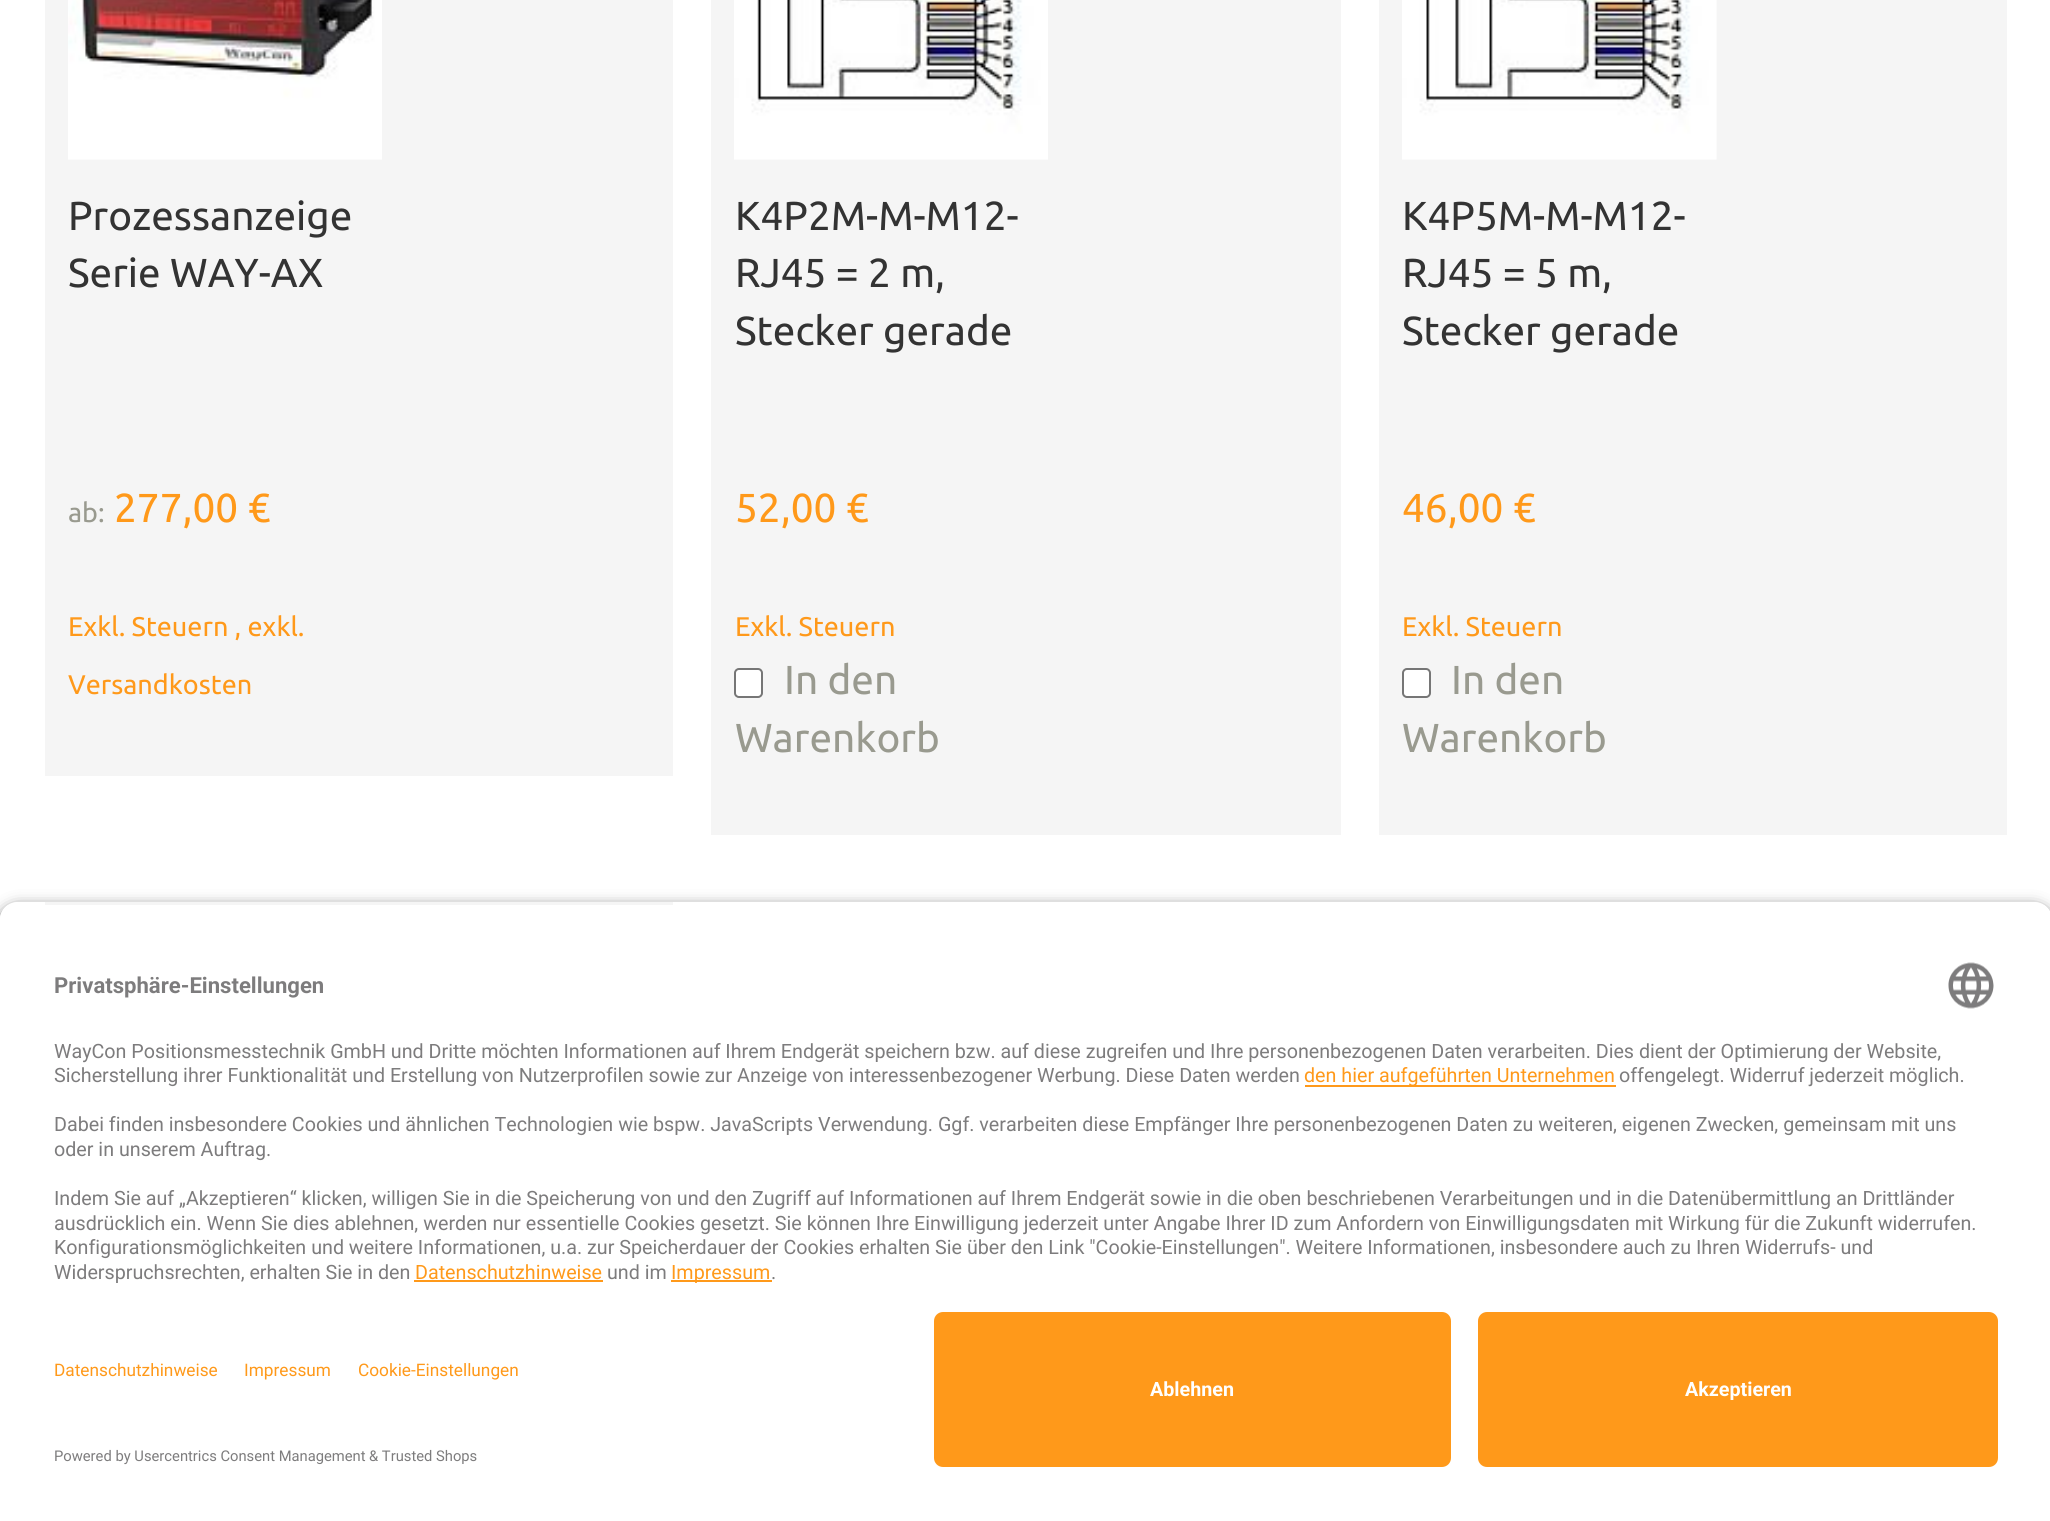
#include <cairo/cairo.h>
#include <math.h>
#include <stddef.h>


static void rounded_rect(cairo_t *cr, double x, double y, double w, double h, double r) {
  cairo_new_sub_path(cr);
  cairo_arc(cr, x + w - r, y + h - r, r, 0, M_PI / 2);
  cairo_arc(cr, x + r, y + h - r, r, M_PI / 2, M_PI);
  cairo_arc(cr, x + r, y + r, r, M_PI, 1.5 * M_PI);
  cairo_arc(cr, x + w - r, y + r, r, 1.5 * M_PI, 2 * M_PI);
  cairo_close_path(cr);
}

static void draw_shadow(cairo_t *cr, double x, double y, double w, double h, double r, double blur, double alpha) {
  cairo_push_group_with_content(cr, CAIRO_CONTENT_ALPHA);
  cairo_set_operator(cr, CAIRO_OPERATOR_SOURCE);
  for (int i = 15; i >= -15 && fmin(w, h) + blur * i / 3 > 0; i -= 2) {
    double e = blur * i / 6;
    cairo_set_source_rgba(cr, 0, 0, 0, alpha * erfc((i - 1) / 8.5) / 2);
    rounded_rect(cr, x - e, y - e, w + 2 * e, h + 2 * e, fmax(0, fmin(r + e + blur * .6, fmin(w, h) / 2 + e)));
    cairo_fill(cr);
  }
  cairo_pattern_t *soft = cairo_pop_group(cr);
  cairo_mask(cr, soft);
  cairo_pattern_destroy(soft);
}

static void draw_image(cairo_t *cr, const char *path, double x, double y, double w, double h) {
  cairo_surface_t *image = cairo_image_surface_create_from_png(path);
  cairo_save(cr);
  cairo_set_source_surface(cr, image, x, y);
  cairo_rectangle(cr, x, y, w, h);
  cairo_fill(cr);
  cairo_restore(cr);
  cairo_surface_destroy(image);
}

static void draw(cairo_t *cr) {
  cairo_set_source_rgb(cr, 1, 1, 1);
  cairo_paint(cr);
  cairo_set_source_rgb(cr, 245 / 255.0, 245 / 255.0, 245 / 255.0);
  cairo_rectangle(cr, 45, 0, 628, 776);
  cairo_fill(cr);
  draw_image(cr, "images/1.png", 68, 0, 314, 160);
  cairo_rectangle(cr, 711, 0, 630, 835);
  cairo_fill(cr);
  draw_image(cr, "images/2.png", 734, 0, 314, 160);
  cairo_set_source_rgb(cr, 1, 1, 1);
  rounded_rect(cr, 735, 669, 27, 28, 4);
  cairo_fill_preserve(cr);
  cairo_set_source_rgb(cr, 118 / 255.0, 118 / 255.0, 118 / 255.0);
  cairo_stroke(cr);
  cairo_set_source_rgb(cr, 245 / 255.0, 245 / 255.0, 245 / 255.0);
  cairo_rectangle(cr, 1379, 0, 628, 835);
  cairo_fill(cr);
  draw_image(cr, "images/3.png", 1402, 0, 315, 160);
  cairo_set_source_rgb(cr, 1, 1, 1);
  rounded_rect(cr, 1403, 669, 27, 28, 4);
  cairo_fill_preserve(cr);
  cairo_set_source_rgb(cr, 118 / 255.0, 118 / 255.0, 118 / 255.0);
  cairo_stroke(cr);
  cairo_set_source_rgb(cr, 245 / 255.0, 245 / 255.0, 245 / 255.0);
  cairo_rectangle(cr, 45, 902, 628, 3);
  cairo_fill(cr);
  cairo_save(cr);
  cairo_set_fill_rule(cr, CAIRO_FILL_RULE_EVEN_ODD);
  cairo_new_path(cr);
  cairo_move_to(cr, 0, 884);
  cairo_line_to(cr, 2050, 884);
  cairo_line_to(cr, 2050, 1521);
  cairo_line_to(cr, 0, 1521);
  cairo_close_path(cr);
  cairo_move_to(cr, 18, 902);
  cairo_line_to(cr, 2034, 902);
  cairo_curve_to(cr, 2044, 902, 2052, 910, 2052, 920);
  cairo_line_to(cr, 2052, 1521);
  cairo_line_to(cr, 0, 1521);
  cairo_line_to(cr, 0, 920);
  cairo_curve_to(cr, 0, 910, 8, 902, 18, 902);
  cairo_close_path(cr);
  cairo_clip(cr);
  cairo_set_source_rgb(cr, 0, 0, 0);
  draw_shadow(cr, 0, 909, 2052, 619, 18, 8, 0.8);
  cairo_restore(cr);
  cairo_save(cr);
  cairo_new_path(cr);
  cairo_move_to(cr, 18, 902);
  cairo_line_to(cr, 2034, 902);
  cairo_curve_to(cr, 2044, 902, 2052, 910, 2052, 920);
  cairo_line_to(cr, 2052, 1294);
  cairo_line_to(cr, 0, 1294);
  cairo_line_to(cr, 0, 920);
  cairo_curve_to(cr, 0, 910, 8, 902, 18, 902);
  cairo_close_path(cr);
  cairo_clip(cr);
  cairo_set_source_rgb(cr, 1, 1, 1);
  cairo_rectangle(cr, 0, 905, 2050, 389);
  cairo_fill(cr);
  cairo_restore(cr);
  draw_image(cr, "images/4.png", 1948, 962, 46, 47);
  cairo_set_source_rgb(cr, 1, 153 / 255.0, 26 / 255.0);
  cairo_rectangle(cr, 1305, 1085, 311, 2);
  cairo_fill(cr);
  cairo_rectangle(cr, 414, 1280, 189, 2);
  cairo_fill(cr);
  cairo_rectangle(cr, 671, 1280, 101, 2);
  cairo_fill(cr);
  rounded_rect(cr, 934, 1312, 517, 155, 9);
  cairo_fill(cr);
  rounded_rect(cr, 1478, 1312, 520, 155, 9);
  cairo_fill(cr);
  cairo_select_font_face(cr, "Ubuntu", CAIRO_FONT_SLANT_NORMAL, CAIRO_FONT_WEIGHT_NORMAL);
  cairo_set_font_size(cr, 40.5);
  cairo_set_source_rgb(cr, 51 / 255.0, 51 / 255.0, 51 / 255.0);
  cairo_move_to(cr, 68, 230);
  cairo_show_text(cr, "Prozessanzeige");
  cairo_move_to(cr, 68, 287);
  cairo_show_text(cr, "Serie WAY-AX");
  cairo_set_font_size(cr, 27);
  cairo_set_source_rgb(cr, 153 / 255.0, 154 / 255.0, 143 / 255.0);
  cairo_move_to(cr, 68, 522);
  cairo_show_text(cr, "ab:");
  cairo_set_font_size(cr, 40.5);
  cairo_set_source_rgb(cr, 1, 153 / 255.0, 26 / 255.0);
  cairo_move_to(cr, 114, 522);
  cairo_show_text(cr, "277,00 €");
  cairo_set_font_size(cr, 27);
  cairo_move_to(cr, 68, 636);
  cairo_show_text(cr, "Exkl. Steuern , exkl.");
  cairo_move_to(cr, 68, 694);
  cairo_show_text(cr, "Versandkosten");
  cairo_set_font_size(cr, 40.5);
  cairo_set_source_rgb(cr, 51 / 255.0, 51 / 255.0, 51 / 255.0);
  cairo_move_to(cr, 735, 230);
  cairo_show_text(cr, "K4P2M-M-M12-");
  cairo_move_to(cr, 735, 287);
  cairo_show_text(cr, "RJ45 = 2 m,");
  cairo_move_to(cr, 735, 345);
  cairo_show_text(cr, "Stecker gerade");
  cairo_set_source_rgb(cr, 1, 153 / 255.0, 26 / 255.0);
  cairo_move_to(cr, 735, 522);
  cairo_show_text(cr, "52,00 €");
  cairo_set_font_size(cr, 27);
  cairo_move_to(cr, 735, 636);
  cairo_show_text(cr, "Exkl. Steuern");
  cairo_set_font_size(cr, 40.5);
  cairo_set_source_rgb(cr, 153 / 255.0, 154 / 255.0, 143 / 255.0);
  cairo_move_to(cr, 784, 694);
  cairo_show_text(cr, "In den");
  cairo_move_to(cr, 735, 752);
  cairo_show_text(cr, "Warenkorb");
  cairo_set_source_rgb(cr, 51 / 255.0, 51 / 255.0, 51 / 255.0);
  cairo_move_to(cr, 1402, 230);
  cairo_show_text(cr, "K4P5M-M-M12-");
  cairo_move_to(cr, 1402, 287);
  cairo_show_text(cr, "RJ45 = 5 m,");
  cairo_move_to(cr, 1402, 345);
  cairo_show_text(cr, "Stecker gerade");
  cairo_set_source_rgb(cr, 1, 153 / 255.0, 26 / 255.0);
  cairo_move_to(cr, 1402, 522);
  cairo_show_text(cr, "46,00 €");
  cairo_set_font_size(cr, 27);
  cairo_move_to(cr, 1402, 636);
  cairo_show_text(cr, "Exkl. Steuern");
  cairo_set_font_size(cr, 40.5);
  cairo_set_source_rgb(cr, 153 / 255.0, 154 / 255.0, 143 / 255.0);
  cairo_move_to(cr, 1451, 694);
  cairo_show_text(cr, "In den");
  cairo_move_to(cr, 1402, 752);
  cairo_show_text(cr, "Warenkorb");
  cairo_select_font_face(cr, "Roboto", CAIRO_FONT_SLANT_NORMAL, CAIRO_FONT_WEIGHT_BOLD);
  cairo_set_font_size(cr, 22.1);
  cairo_set_source_rgb(cr, 125 / 255.0, 124 / 255.0, 125 / 255.0);
  cairo_move_to(cr, 54, 993);
  cairo_show_text(cr, "Privatsphäre-Einstellungen");
  cairo_select_font_face(cr, "Roboto", CAIRO_FONT_SLANT_NORMAL, CAIRO_FONT_WEIGHT_NORMAL);
  cairo_set_font_size(cr, 19.7);
  cairo_move_to(cr, 54, 1058);
  cairo_show_text(cr, "WayCon Positionsmesstechnik GmbH und Dritte möchten Informationen auf Ihrem Endgerät speichern bzw. auf diese zugreifen und Ihre personenbezogenen Daten verarbeiten. Dies dient der Optimierung der Website,");
  cairo_move_to(cr, 54, 1082);
  cairo_show_text(cr, "Sicherstellung ihrer Funktionalität und Erstellung von Nutzerprofilen sowie zur Anzeige von interessenbezogener Werbung. Diese Daten werden");
  cairo_set_source_rgb(cr, 1, 153 / 255.0, 26 / 255.0);
  cairo_move_to(cr, 1304, 1082);
  cairo_show_text(cr, "den hier aufgeführten Unternehmen");
  cairo_set_source_rgb(cr, 125 / 255.0, 124 / 255.0, 125 / 255.0);
  cairo_move_to(cr, 1619, 1082);
  cairo_show_text(cr, "offengelegt. Widerruf jederzeit möglich.");
  cairo_move_to(cr, 54, 1131);
  cairo_show_text(cr, "Dabei finden insbesondere Cookies und ähnlichen Technologien wie bspw. JavaScripts Verwendung. Ggf. verarbeiten diese Empfänger Ihre personenbezogenen Daten zu weiteren, eigenen Zwecken, gemeinsam mit uns");
  cairo_move_to(cr, 54, 1156);
  cairo_show_text(cr, "oder in unserem Auftrag.");
  cairo_move_to(cr, 54, 1205);
  cairo_show_text(cr, "Indem Sie auf „Akzeptieren“ klicken, willigen Sie in die Speicherung von und den Zugriff auf Informationen auf Ihrem Endgerät sowie in die oben beschriebenen Verarbeitungen und in die Datenübermittlung an Drittländer");
  cairo_move_to(cr, 54, 1230);
  cairo_show_text(cr, "ausdrücklich ein. Wenn Sie dies ablehnen, werden nur essentielle Cookies gesetzt. Sie können Ihre Einwilligung jederzeit unter Angabe Ihrer ID zum Anfordern von Einwilligungsdaten mit Wirkung für die Zukunft widerrufen.");
  cairo_move_to(cr, 54, 1254);
  cairo_show_text(cr, "Konfigurationsmöglichkeiten und weitere Informationen, u.a. zur Speicherdauer der Cookies erhalten Sie über den Link \"Cookie-Einstellungen\". Weitere Informationen, insbesondere auch zu Ihren Widerrufs- und");
  cairo_move_to(cr, 54, 1279);
  cairo_show_text(cr, "Widerspruchsrechten, erhalten Sie in den");
  cairo_set_source_rgb(cr, 1, 153 / 255.0, 26 / 255.0);
  cairo_move_to(cr, 415, 1279);
  cairo_show_text(cr, "Datenschutzhinweise");
  cairo_set_source_rgb(cr, 125 / 255.0, 124 / 255.0, 125 / 255.0);
  cairo_move_to(cr, 607, 1279);
  cairo_show_text(cr, "und im");
  cairo_set_source_rgb(cr, 1, 153 / 255.0, 26 / 255.0);
  cairo_move_to(cr, 671, 1279);
  cairo_show_text(cr, "Impressum");
  cairo_set_source_rgb(cr, 125 / 255.0, 124 / 255.0, 125 / 255.0);
  cairo_move_to(cr, 771, 1279);
  cairo_show_text(cr, ".");
  cairo_set_font_size(cr, 17.25);
  cairo_set_source_rgb(cr, 1, 153 / 255.0, 26 / 255.0);
  cairo_move_to(cr, 54, 1376);
  cairo_show_text(cr, "Datenschutzhinweise");
  cairo_move_to(cr, 244, 1376);
  cairo_show_text(cr, "Impressum");
  cairo_move_to(cr, 358, 1376);
  cairo_show_text(cr, "Cookie-Einstellungen");
  cairo_set_font_size(cr, 14.75);
  cairo_set_source_rgb(cr, 125 / 255.0, 124 / 255.0, 125 / 255.0);
  cairo_move_to(cr, 54, 1461);
  cairo_show_text(cr, "Powered by Usercentrics Consent Management");
  cairo_move_to(cr, 369, 1461);
  cairo_show_text(cr, "& Trusted Shops");
  cairo_select_font_face(cr, "Roboto", CAIRO_FONT_SLANT_NORMAL, CAIRO_FONT_WEIGHT_BOLD);
  cairo_set_font_size(cr, 19.7);
  cairo_set_source_rgb(cr, 1, 1, 1);
  cairo_move_to(cr, 1150, 1396);
  cairo_show_text(cr, "Ablehnen");
  cairo_move_to(cr, 1685, 1396);
  cairo_show_text(cr, "Akzeptieren");
}

int main(void) {
  cairo_surface_t *surface = cairo_image_surface_create(CAIRO_FORMAT_RGB24, 2050, 1521);
  cairo_t *cr = cairo_create(surface);
  cairo_font_options_t *options = cairo_font_options_create();
  cairo_font_options_set_hint_metrics(options, CAIRO_HINT_METRICS_OFF);
  cairo_font_options_set_hint_style(options, CAIRO_HINT_STYLE_NONE);
  cairo_set_font_options(cr, options);
  cairo_set_miter_limit(cr, 4);
  draw(cr);
  cairo_surface_write_to_png(surface, "out.png");
  cairo_font_options_destroy(options);
  cairo_destroy(cr);
  cairo_surface_destroy(surface);
  return 0;
}
